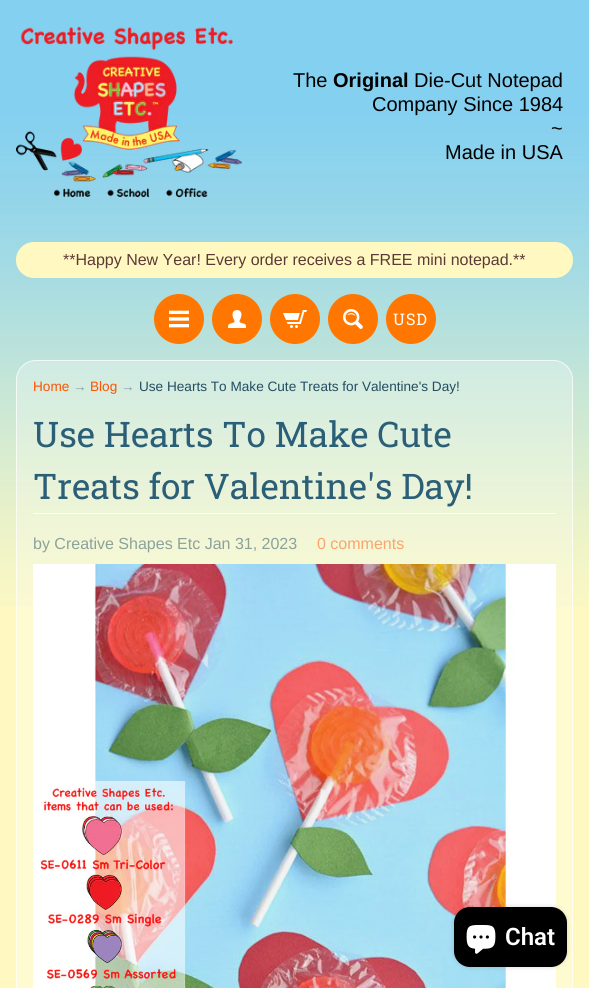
#include <cairo/cairo.h>
#include <math.h>
#include <stddef.h>


static void draw_spaced(cairo_t *cr, double x, double y, const char *s, double letter, double word) {
  cairo_move_to(cr, x, y);
  while (*s) {
    char ch[5] = {0};
    int n = 0;
    do ch[n++] = *s++; while ((*s & 0xC0) == 0x80);
    cairo_show_text(cr, ch);
    cairo_rel_move_to(cr, letter + word * (*ch == ' '), 0);
  }
}

static void rounded_rect(cairo_t *cr, double x, double y, double w, double h, double r) {
  cairo_new_sub_path(cr);
  cairo_arc(cr, x + w - r, y + h - r, r, 0, M_PI / 2);
  cairo_arc(cr, x + r, y + h - r, r, M_PI / 2, M_PI);
  cairo_arc(cr, x + r, y + r, r, M_PI, 1.5 * M_PI);
  cairo_arc(cr, x + w - r, y + r, r, 1.5 * M_PI, 2 * M_PI);
  cairo_close_path(cr);
}

static void draw_shadow(cairo_t *cr, double x, double y, double w, double h, double r, double blur, double alpha) {
  cairo_push_group_with_content(cr, CAIRO_CONTENT_ALPHA);
  cairo_set_operator(cr, CAIRO_OPERATOR_SOURCE);
  for (int i = 15; i >= -15 && fmin(w, h) + blur * i / 3 > 0; i -= 2) {
    double e = blur * i / 6;
    cairo_set_source_rgba(cr, 0, 0, 0, alpha * erfc((i - 1) / 8.5) / 2);
    rounded_rect(cr, x - e, y - e, w + 2 * e, h + 2 * e, fmax(0, fmin(r + e + blur * .6, fmin(w, h) / 2 + e)));
    cairo_fill(cr);
  }
  cairo_pattern_t *soft = cairo_pop_group(cr);
  cairo_mask(cr, soft);
  cairo_pattern_destroy(soft);
}

static void draw_image(cairo_t *cr, const char *path, double x, double y, double w, double h) {
  cairo_surface_t *image = cairo_image_surface_create_from_png(path);
  cairo_save(cr);
  cairo_set_source_surface(cr, image, x, y);
  cairo_rectangle(cr, x, y, w, h);
  cairo_fill(cr);
  cairo_restore(cr);
  cairo_surface_destroy(image);
}

static void draw(cairo_t *cr) {
  cairo_set_source_rgb(cr, 1, 249 / 255.0, 193 / 255.0);
  cairo_paint(cr);
  draw_image(cr, "images/1.png", 0, 0, 589, 607);
  draw_image(cr, "images/2.png", 16, 26, 226, 172);
  cairo_set_source_rgb(cr, 1, 249 / 255.0, 193 / 255.0);
  rounded_rect(cr, 16, 242, 557, 36, 18);
  cairo_fill(cr);
  cairo_set_source_rgb(cr, 1, 119 / 255.0, 0);
  cairo_arc(cr, 179, 319, 23.5, 0, 2 * M_PI);
  cairo_fill_preserve(cr);
  cairo_set_line_width(cr, 3);
  cairo_stroke(cr);
  draw_image(cr, "images/3.png", 169, 310, 20, 18);
  cairo_arc(cr, 237, 319, 23.5, 0, 2 * M_PI);
  cairo_fill_preserve(cr);
  cairo_stroke(cr);
  draw_image(cr, "images/4.png", 228, 310, 18, 18);
  cairo_arc(cr, 295, 319, 23.5, 0, 2 * M_PI);
  cairo_fill_preserve(cr);
  cairo_stroke(cr);
  draw_image(cr, "images/5.png", 283, 310, 24, 18);
  cairo_arc(cr, 353, 319, 23.5, 0, 2 * M_PI);
  cairo_fill_preserve(cr);
  cairo_stroke(cr);
  draw_image(cr, "images/6.png", 343, 309, 20, 20);
  cairo_arc(cr, 411, 319, 23.5, 0, 2 * M_PI);
  cairo_fill_preserve(cr);
  cairo_stroke(cr);
  cairo_set_source_rgba(cr, 1, 1, 1, 0.25);
  rounded_rect(cr, 16, 360, 557, 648, 20);
  cairo_fill(cr);
  rounded_rect(cr, 16.5, 360.5, 556, 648, 19.5);
  cairo_set_source_rgba(cr, 1, 1, 1, 0.7);
  cairo_set_line_width(cr, 1);
  cairo_stroke(cr);
  cairo_set_source_rgb(cr, 1, 1, 1);
  cairo_rectangle(cr, 33, 513, 523, 1);
  cairo_fill(cr);
  draw_image(cr, "images/7.png", 33, 564, 523, 424);
  cairo_set_source_rgb(cr, 0, 0, 0);
  draw_shadow(cr, 454, 907, 113, 60, 16, 2.5, 0.15);
  cairo_set_source_rgb(cr, 0, 0, 0);
  rounded_rect(cr, 454, 907, 113, 60, 16);
  cairo_fill(cr);
  draw_image(cr, "images/8.png", 466, 925, 30, 29);
  cairo_select_font_face(cr, "Arimo", CAIRO_FONT_SLANT_NORMAL, CAIRO_FONT_WEIGHT_NORMAL);
  cairo_set_font_size(cr, 20);
  cairo_move_to(cr, 293, 87);
  cairo_show_text(cr, "The");
  cairo_select_font_face(cr, "Arimo", CAIRO_FONT_SLANT_NORMAL, CAIRO_FONT_WEIGHT_BOLD);
  cairo_move_to(cr, 333, 87);
  cairo_show_text(cr, "Original");
  cairo_select_font_face(cr, "Arimo", CAIRO_FONT_SLANT_NORMAL, CAIRO_FONT_WEIGHT_NORMAL);
  cairo_move_to(cr, 414, 87);
  cairo_show_text(cr, "Die-Cut Notepad");
  cairo_move_to(cr, 372, 111);
  cairo_show_text(cr, "Company Since 1984");
  cairo_move_to(cr, 551, 135);
  cairo_show_text(cr, "~");
  cairo_move_to(cr, 445, 159);
  cairo_show_text(cr, "Made in USA");
  cairo_set_font_size(cr, 16);
  cairo_set_source_rgb(cr, 93 / 255.0, 57 / 255.0, 55 / 255.0);
  cairo_move_to(cr, 63, 265);
  cairo_show_text(cr, "**Happy New Year! Every order receives a FREE mini notepad.**");
  cairo_select_font_face(cr, "Roboto Slab", CAIRO_FONT_SLANT_NORMAL, CAIRO_FONT_WEIGHT_NORMAL);
  cairo_set_source_rgb(cr, 1, 1, 1);
  draw_spaced(cr, 393, 325, "USD", 1, 0);
  cairo_select_font_face(cr, "Arimo", CAIRO_FONT_SLANT_NORMAL, CAIRO_FONT_WEIGHT_NORMAL);
  cairo_set_font_size(cr, 13.6);
  cairo_set_source_rgb(cr, 1, 83 / 255.0, 0);
  cairo_move_to(cr, 33, 391);
  cairo_show_text(cr, "Home");
  cairo_select_font_face(cr, "Liberation Sans", CAIRO_FONT_SLANT_NORMAL, CAIRO_FONT_WEIGHT_NORMAL);
  cairo_set_source_rgb(cr, 124 / 255.0, 157 / 255.0, 161 / 255.0);
  cairo_move_to(cr, 73, 391);
  cairo_show_text(cr, "→");
  cairo_select_font_face(cr, "Arimo", CAIRO_FONT_SLANT_NORMAL, CAIRO_FONT_WEIGHT_NORMAL);
  cairo_set_source_rgb(cr, 1, 83 / 255.0, 0);
  cairo_move_to(cr, 90, 391);
  cairo_show_text(cr, "Blog");
  cairo_select_font_face(cr, "Liberation Sans", CAIRO_FONT_SLANT_NORMAL, CAIRO_FONT_WEIGHT_NORMAL);
  cairo_set_source_rgb(cr, 124 / 255.0, 157 / 255.0, 161 / 255.0);
  cairo_move_to(cr, 121, 391);
  cairo_show_text(cr, "→");
  cairo_select_font_face(cr, "Arimo", CAIRO_FONT_SLANT_NORMAL, CAIRO_FONT_WEIGHT_NORMAL);
  cairo_set_source_rgb(cr, 35 / 255.0, 77 / 255.0, 97 / 255.0);
  cairo_move_to(cr, 139, 391);
  cairo_show_text(cr, "Use Hearts To Make Cute Treats for Valentine's Day!");
  cairo_select_font_face(cr, "Roboto Slab", CAIRO_FONT_SLANT_NORMAL, CAIRO_FONT_WEIGHT_NORMAL);
  cairo_set_font_size(cr, 35.25);
  cairo_set_source_rgb(cr, 43 / 255.0, 95 / 255.0, 119 / 255.0);
  cairo_move_to(cr, 33, 447);
  cairo_show_text(cr, "Use Hearts To Make Cute");
  cairo_move_to(cr, 33, 499);
  cairo_show_text(cr, "Treats for Valentine's Day!");
  cairo_select_font_face(cr, "Arimo", CAIRO_FONT_SLANT_NORMAL, CAIRO_FONT_WEIGHT_NORMAL);
  cairo_set_font_size(cr, 16);
  cairo_set_source_rgb(cr, 139 / 255.0, 162 / 255.0, 155 / 255.0);
  cairo_move_to(cr, 33, 549);
  cairo_show_text(cr, "by Creative Shapes Etc Jan 31, 2023");
  cairo_set_source_rgb(cr, 249 / 255.0, 165 / 255.0, 107 / 255.0);
  cairo_move_to(cr, 317, 549);
  cairo_show_text(cr, "0 comments");
  cairo_select_font_face(cr, "Roboto SemiBold", CAIRO_FONT_SLANT_NORMAL, CAIRO_FONT_WEIGHT_NORMAL);
  cairo_set_font_size(cr, 24);
  cairo_set_source_rgb(cr, 1, 1, 1);
  cairo_move_to(cr, 505, 945);
  cairo_show_text(cr, "Chat");
}

int main(void) {
  cairo_surface_t *surface = cairo_image_surface_create(CAIRO_FORMAT_RGB24, 589, 988);
  cairo_t *cr = cairo_create(surface);
  cairo_font_options_t *options = cairo_font_options_create();
  cairo_font_options_set_hint_metrics(options, CAIRO_HINT_METRICS_OFF);
  cairo_font_options_set_hint_style(options, CAIRO_HINT_STYLE_NONE);
  cairo_set_font_options(cr, options);
  cairo_set_miter_limit(cr, 4);
  draw(cr);
  cairo_surface_write_to_png(surface, "out.png");
  cairo_font_options_destroy(options);
  cairo_destroy(cr);
  cairo_surface_destroy(surface);
  return 0;
}
